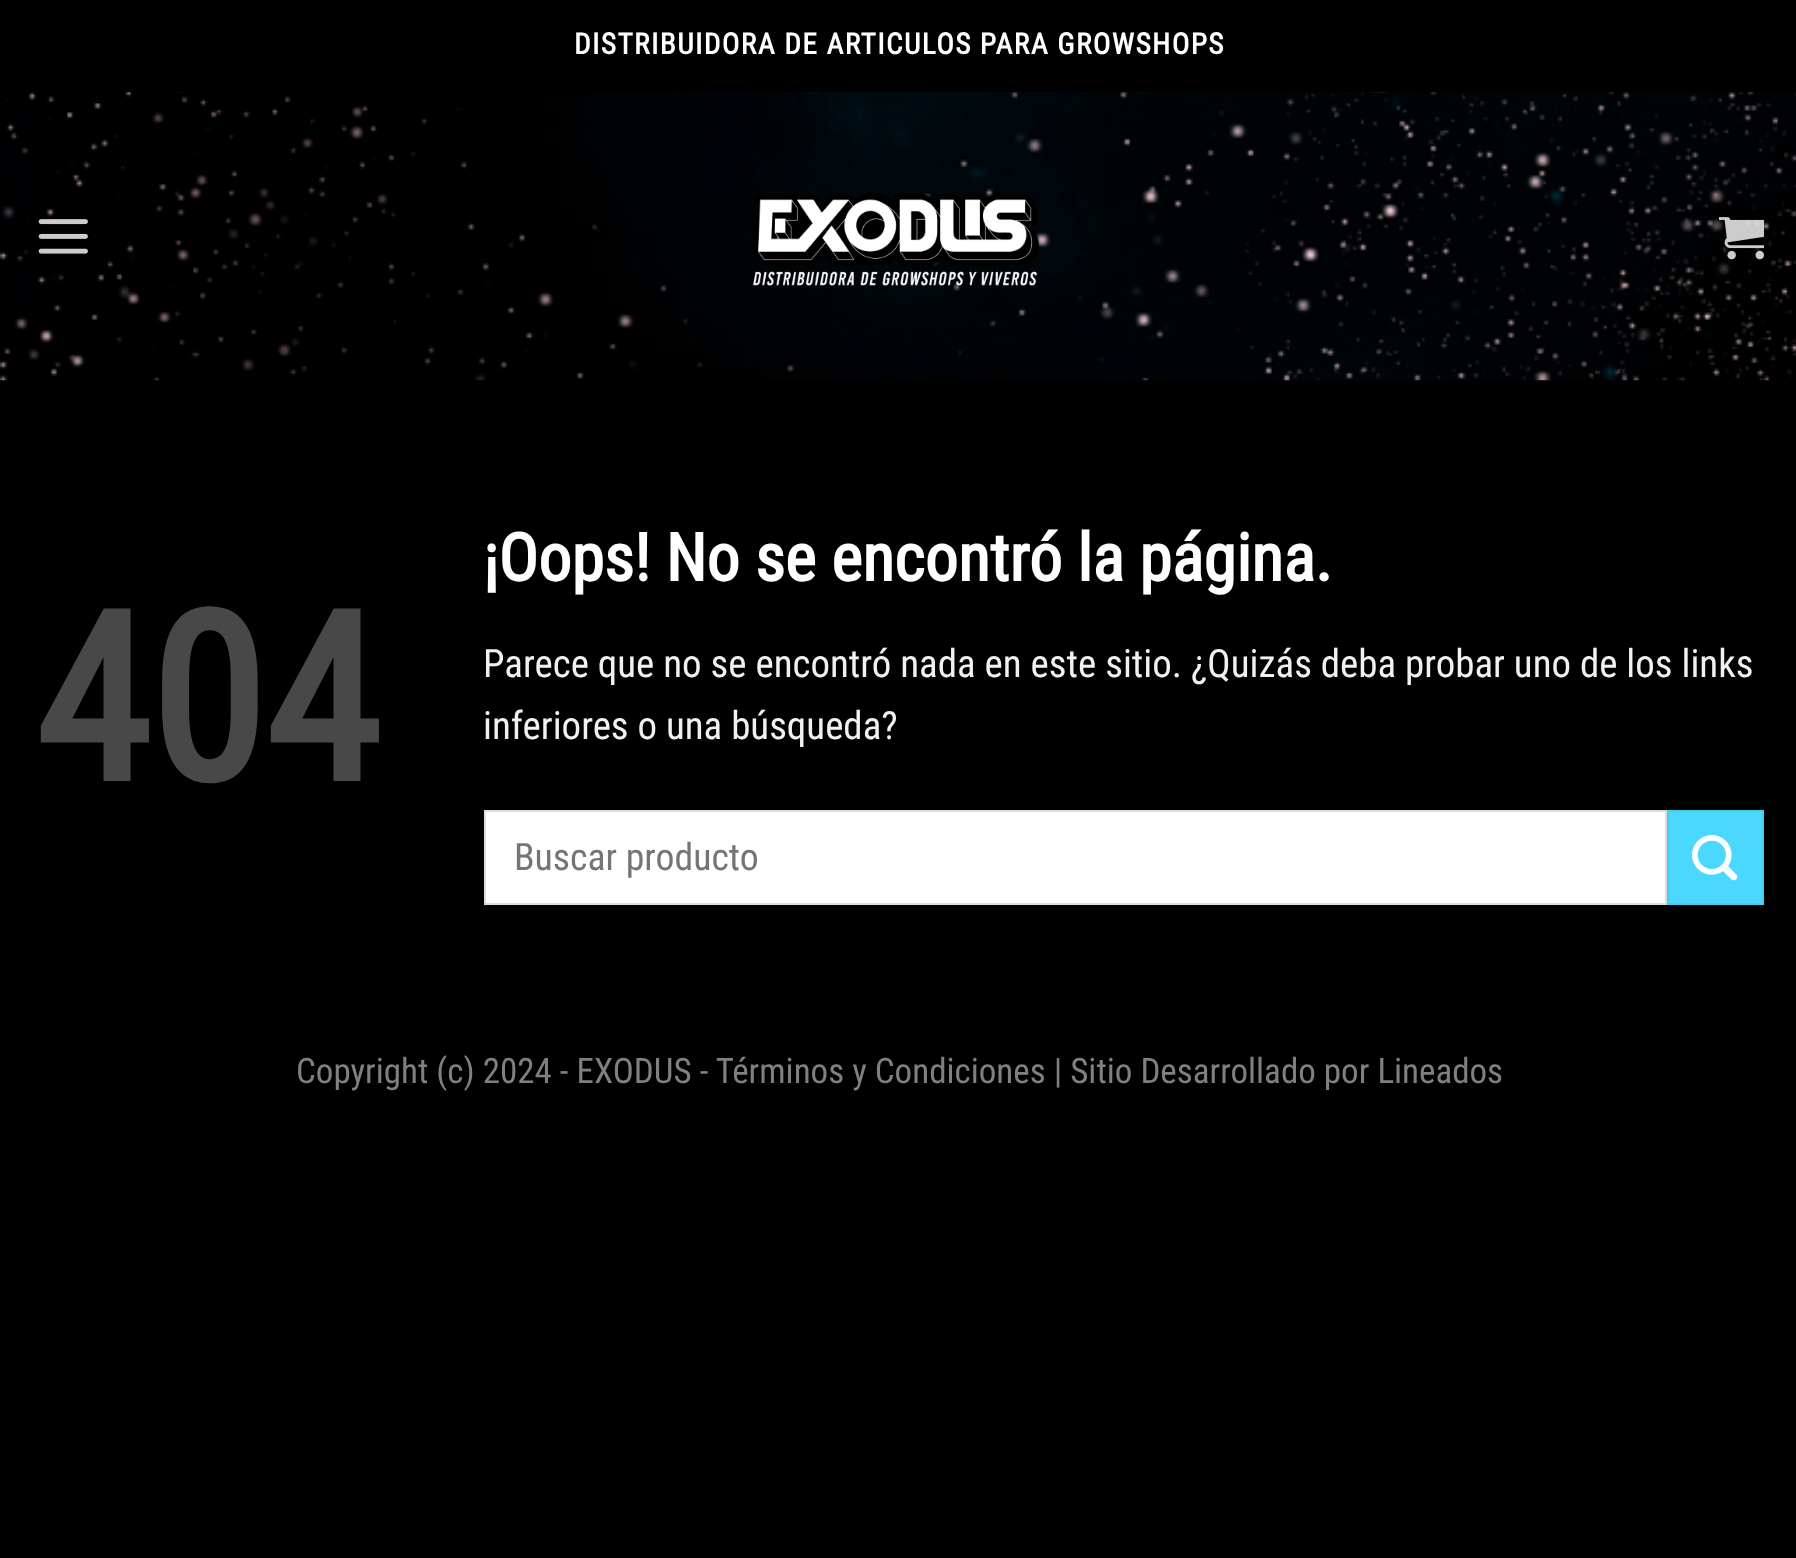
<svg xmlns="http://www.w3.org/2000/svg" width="1796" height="1558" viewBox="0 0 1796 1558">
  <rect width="100%" height="100%" fill="#000000"/>
  <text x="574" y="54" font-family="Roboto Condensed" font-size="29.2" font-weight="bold" letter-spacing="1.45" fill="#ffffff">DISTRIBUIDORA DE ARTICULOS PARA GROWSHOPS</text>
  <image x="0" y="92" width="1796" height="289" href="img1.png"/>
  <image x="38" y="219" width="50" height="35" href="img2.png"/>
  <image x="752" y="193" width="287" height="93" href="img3.png"/>
  <image x="1719" y="217" width="45" height="43" href="img4.png"/>
  <text x="34" y="781" font-family="Roboto Condensed" font-size="233" font-weight="bold" fill="#484848">404</text>
  <text x="483" y="581" font-family="Roboto Condensed" font-size="66.1" font-weight="bold" fill="#ffffff">¡Oops! No se encontró la página.</text>
  <text x="483" y="677" font-family="Roboto Condensed" font-size="38.9" fill="#f1f1f1">Parece que no se encontró nada en este sitio. ¿Quizás deba probar uno de los links</text>
  <text x="483" y="739" font-family="Roboto Condensed" font-size="38.9" fill="#f1f1f1">inferiores o una búsqueda?</text>
  <rect x="485" y="811" width="1181" height="93" fill="#ffffff" stroke="#dddddd" stroke-width="2"/>
  <text x="514" y="870" font-family="Roboto Condensed" font-size="37.75" fill="#757575">Buscar producto</text>
  <rect x="1668" y="811" width="95" height="93" fill="#4ad8ff" stroke="#46cdf2" stroke-width="2"/>
  <image x="1692" y="835" width="46" height="46" href="img5.png"/>
  <text x="296" y="1083" font-family="Roboto Condensed" font-size="35" fill="#808080">Copyright (c) 2024 - EXODUS - Términos y Condiciones | Sitio Desarrollado por Lineados</text>
</svg>
